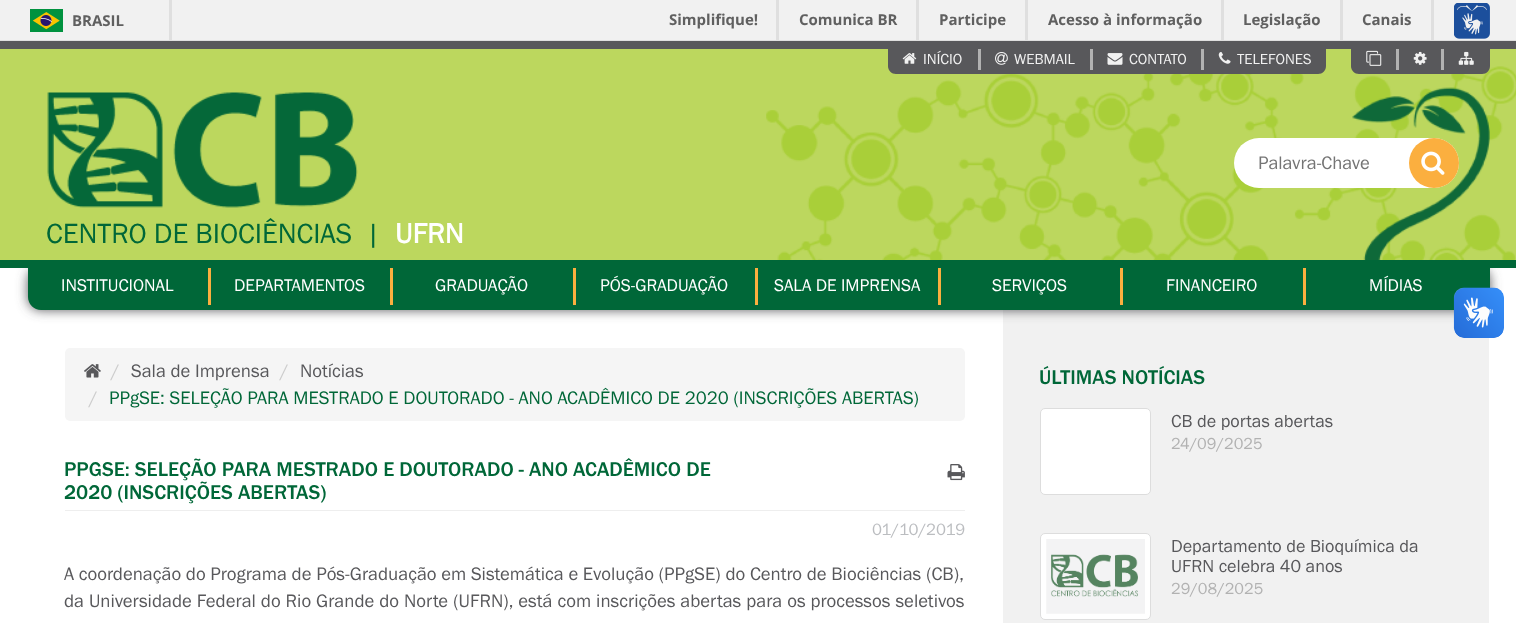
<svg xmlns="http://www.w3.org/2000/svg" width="1516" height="623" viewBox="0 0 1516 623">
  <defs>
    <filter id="blur1" x="-50%" y="-200%" width="200%" height="500%"><feGaussianBlur stdDeviation="6"/></filter>
  </defs>
  <rect width="100%" height="100%" fill="#ffffff"/>
  <rect x="0" y="0" width="1516" height="40" fill="#f1f1f1"/>
  <rect x="0" y="40" width="1516" height="1" fill="#dfdfdf"/>
  <rect x="169" y="0" width="3" height="40" fill="#dfdfdf"/>
  <image x="30" y="9" width="33" height="23" href="img1.png"/>
  <text x="72" y="26" font-family="Open Sans" font-size="15" font-weight="bold" fill="#606060">BRASIL</text>
  <rect x="776" y="0" width="3" height="40" fill="#dfdfdf"/>
  <text x="669" y="25" font-family="Open Sans" font-size="15" font-weight="bold" fill="#606060">Simplifique!</text>
  <rect x="916" y="0" width="3" height="40" fill="#dfdfdf"/>
  <text x="799" y="25" font-family="Open Sans" font-size="15" font-weight="bold" fill="#606060">Comunica BR</text>
  <rect x="1025" y="0" width="3" height="40" fill="#dfdfdf"/>
  <text x="939" y="25" font-family="Open Sans" font-size="15" font-weight="bold" fill="#606060">Participe</text>
  <rect x="1221" y="0" width="3" height="40" fill="#dfdfdf"/>
  <text x="1048" y="25" font-family="Open Sans" font-size="15" font-weight="bold" fill="#606060">Acesso à informação</text>
  <rect x="1340" y="0" width="3" height="40" fill="#dfdfdf"/>
  <text x="1243" y="25" font-family="Open Sans" font-size="15" font-weight="bold" fill="#606060">Legislação</text>
  <rect x="1431" y="0" width="3" height="40" fill="#dfdfdf"/>
  <text x="1362" y="25" font-family="Open Sans" font-size="15" font-weight="bold" fill="#606060">Canais</text>
  <image x="1454" y="3" width="36" height="36" href="img2.png"/>
  <rect x="1003" y="310" width="486" height="313" fill="#f1f1f1"/>
  <rect x="28" y="268" width="1462" height="42" rx="13" fill="#58585b" filter="url(#blur1)"/>
  <rect x="0" y="49" width="1516" height="211" fill="#bcd75e"/>
  <image x="766" y="66" width="750" height="194" href="img3.png"/>
  <rect x="0" y="41" width="1516" height="8" fill="#58585b"/>
  <rect x="0" y="260" width="1516" height="8" fill="#006738"/>
  <image x="1352" y="87" width="138" height="173" href="img4.png"/>
  <path d="M888 49H1326V66C1326 70.5 1322.5 74 1318 74H896C891.5 74 888 70.5 888 66Z" fill="#58585b"/>
  <rect x="978" y="49" width="3" height="21" fill="#b2b2b2"/>
  <image x="902" y="53" width="15" height="11" href="img5.png"/>
  <text x="923" y="64" font-family="Franklin Gothic" font-size="15" fill="#f1f1f1">INÍCIO</text>
  <rect x="1090" y="49" width="3" height="21" fill="#b2b2b2"/>
  <image x="995" y="52" width="13" height="13" href="img6.png"/>
  <text x="1014" y="64" font-family="Franklin Gothic" font-size="15" fill="#f1f1f1">WEBMAIL</text>
  <rect x="1201" y="49" width="3" height="21" fill="#b2b2b2"/>
  <image x="1107" y="53" width="16" height="12" href="img7.png"/>
  <text x="1129" y="64" font-family="Franklin Gothic" font-size="15" fill="#f1f1f1">CONTATO</text>
  <image x="1218" y="52" width="13" height="12" href="img8.png"/>
  <text x="1237" y="64" font-family="Franklin Gothic" font-size="15" fill="#f1f1f1">TELEFONES</text>
  <path d="M1351 49H1490V66C1490 70.5 1486.5 74 1482 74H1359C1354.5 74 1351 70.5 1351 66Z" fill="#58585b"/>
  <rect x="1396" y="49" width="3" height="21" fill="#b2b2b2"/>
  <image x="1366" y="50" width="16" height="16" href="img9.png"/>
  <rect x="1441" y="49" width="3" height="21" fill="#b2b2b2"/>
  <image x="1413" y="51" width="14" height="14" href="img10.png"/>
  <image x="1458" y="51" width="16" height="14" href="img11.png"/>
  <rect x="1234" y="138" width="225" height="50" rx="25" fill="#ffffff"/>
  <text x="1258" y="169" font-family="Franklin Gothic" font-size="18.75" fill="#757575">Palavra-Chave</text>
  <circle cx="1434" cy="163" r="25" fill="#fbaf3f"/>
  <image x="1421" y="151" width="24" height="24" href="img12.png"/>
  <image x="47" y="92" width="311" height="116" href="img13.png"/>
  <text x="46" y="243" font-family="Franklin Gothic" font-size="28.75" fill="#006738">CENTRO DE BIOCIÊNCIAS</text>
  <text x="366" y="243" font-family="Franklin Gothic" font-size="28.75" fill="#006738">|</text>
  <text x="395" y="243" font-family="Franklin Gothic" font-size="28.75" font-weight="bold" fill="#ffffff">UFRN</text>
  <path d="M28 268H1490V297C1490 304 1484 310 1477 310H41C34 310 28 304 28 297Z" fill="#006738"/>
  <rect x="208" y="268" width="3" height="37" fill="#fbaf3f"/>
  <text x="61" y="291" font-family="Franklin Gothic" font-size="17.5" fill="#ffffff">INSTITUCIONAL</text>
  <rect x="390" y="268" width="3" height="37" fill="#fbaf3f"/>
  <text x="234" y="291" font-family="Franklin Gothic" font-size="17.5" fill="#ffffff">DEPARTAMENTOS</text>
  <rect x="573" y="268" width="3" height="37" fill="#fbaf3f"/>
  <text x="435" y="291" font-family="Franklin Gothic" font-size="17.5" fill="#ffffff">GRADUAÇÃO</text>
  <rect x="755" y="268" width="3" height="37" fill="#fbaf3f"/>
  <text x="600" y="291" font-family="Franklin Gothic" font-size="17.5" fill="#ffffff">PÓS-GRADUAÇÃO</text>
  <rect x="938" y="268" width="3" height="37" fill="#fbaf3f"/>
  <text x="774" y="291" font-family="Franklin Gothic" font-size="17.5" fill="#ffffff">SALA DE IMPRENSA</text>
  <rect x="1120" y="268" width="3" height="37" fill="#fbaf3f"/>
  <text x="992" y="291" font-family="Franklin Gothic" font-size="17.5" fill="#ffffff">SERVIÇOS</text>
  <rect x="1303" y="268" width="3" height="37" fill="#fbaf3f"/>
  <text x="1166" y="291" font-family="Franklin Gothic" font-size="17.5" fill="#ffffff">FINANCEIRO</text>
  <text x="1369" y="291" font-family="Franklin Gothic" font-size="17.5" fill="#ffffff">MÍDIAS</text>
  <image x="1453" y="287" width="51" height="51" href="img14.png"/>
  <image x="1454" y="288" width="50" height="50" href="img15.png"/>
  <rect x="65" y="348" width="900" height="73" rx="5" fill="#f5f5f5"/>
  <image x="84" y="364" width="17" height="14" href="img16.png"/>
  <text x="111" y="377" font-family="Franklin Gothic" font-size="18.75" fill="#cccccc">/</text>
  <text x="131" y="377" font-family="Franklin Gothic" font-size="18.75" fill="#58585b">Sala de Imprensa</text>
  <text x="280" y="377" font-family="Franklin Gothic" font-size="18.75" fill="#cccccc">/</text>
  <text x="300" y="377" font-family="Franklin Gothic" font-size="18.75" fill="#58585b">Notícias</text>
  <text x="89" y="404" font-family="Franklin Gothic" font-size="18.75" fill="#cccccc">/</text>
  <text x="109" y="404" font-family="Franklin Gothic" font-size="18.75" fill="#006738">PPgSE: SELEÇÃO PARA MESTRADO E DOUTORADO - ANO ACADÊMICO DE 2020 (INSCRIÇÕES ABERTAS)</text>
  <text x="64" y="476" font-family="Franklin Gothic" font-size="20.6" font-weight="500" fill="#006738">PPGSE: SELEÇÃO PARA MESTRADO E DOUTORADO - ANO ACADÊMICO DE</text>
  <text x="64" y="499" font-family="Franklin Gothic" font-size="20.6" font-weight="500" fill="#006738">2020 (INSCRIÇÕES ABERTAS)</text>
  <image x="947" y="464" width="18" height="17" href="img17.png"/>
  <rect x="65" y="510" width="900" height="1" fill="#eeeeee"/>
  <text x="872" y="535" font-family="Franklin Gothic" font-size="17" fill="#bbbdc0">01/10/2019</text>
  <text x="64" y="580" font-family="Franklin Gothic" font-size="18.75" fill="#58585b">A coordenação do Programa de Pós-Graduação em Sistemática e Evolução (PPgSE) do Centro de Biociências (CB),</text>
  <text x="64" y="607" word-spacing="0.25" font-family="Franklin Gothic" font-size="18.75" fill="#58585b">da Universidade Federal do Rio Grande do Norte (UFRN), está com inscrições abertas para os processos seletivos</text>
  <text x="1039" y="384" font-family="Franklin Gothic" font-size="20.6" font-weight="500" fill="#006738">ÚLTIMAS NOTÍCIAS</text>
  <rect x="1040.5" y="408.5" width="110" height="86" rx="4.5" fill="#ffffff" stroke="#dddddd"/>
  <text x="1171" y="427" font-family="Franklin Gothic" font-size="18.1" fill="#58585b">CB de portas abertas</text>
  <text x="1171" y="449" font-family="Franklin Gothic" font-size="16.5" fill="#b2b2b2">24/09/2025</text>
  <rect x="1040.5" y="533.5" width="110" height="86" rx="4.5" fill="#ffffff" stroke="#dddddd"/>
  <image x="1046" y="539" width="99" height="75" href="img18.png"/>
  <text x="1171" y="552" font-family="Franklin Gothic" font-size="18.1" fill="#58585b">Departamento de Bioquímica da</text>
  <text x="1171" y="572" font-family="Franklin Gothic" font-size="18.1" fill="#58585b">UFRN celebra 40 anos</text>
  <text x="1171" y="594" font-family="Franklin Gothic" font-size="16.5" fill="#b2b2b2">29/08/2025</text>
</svg>
